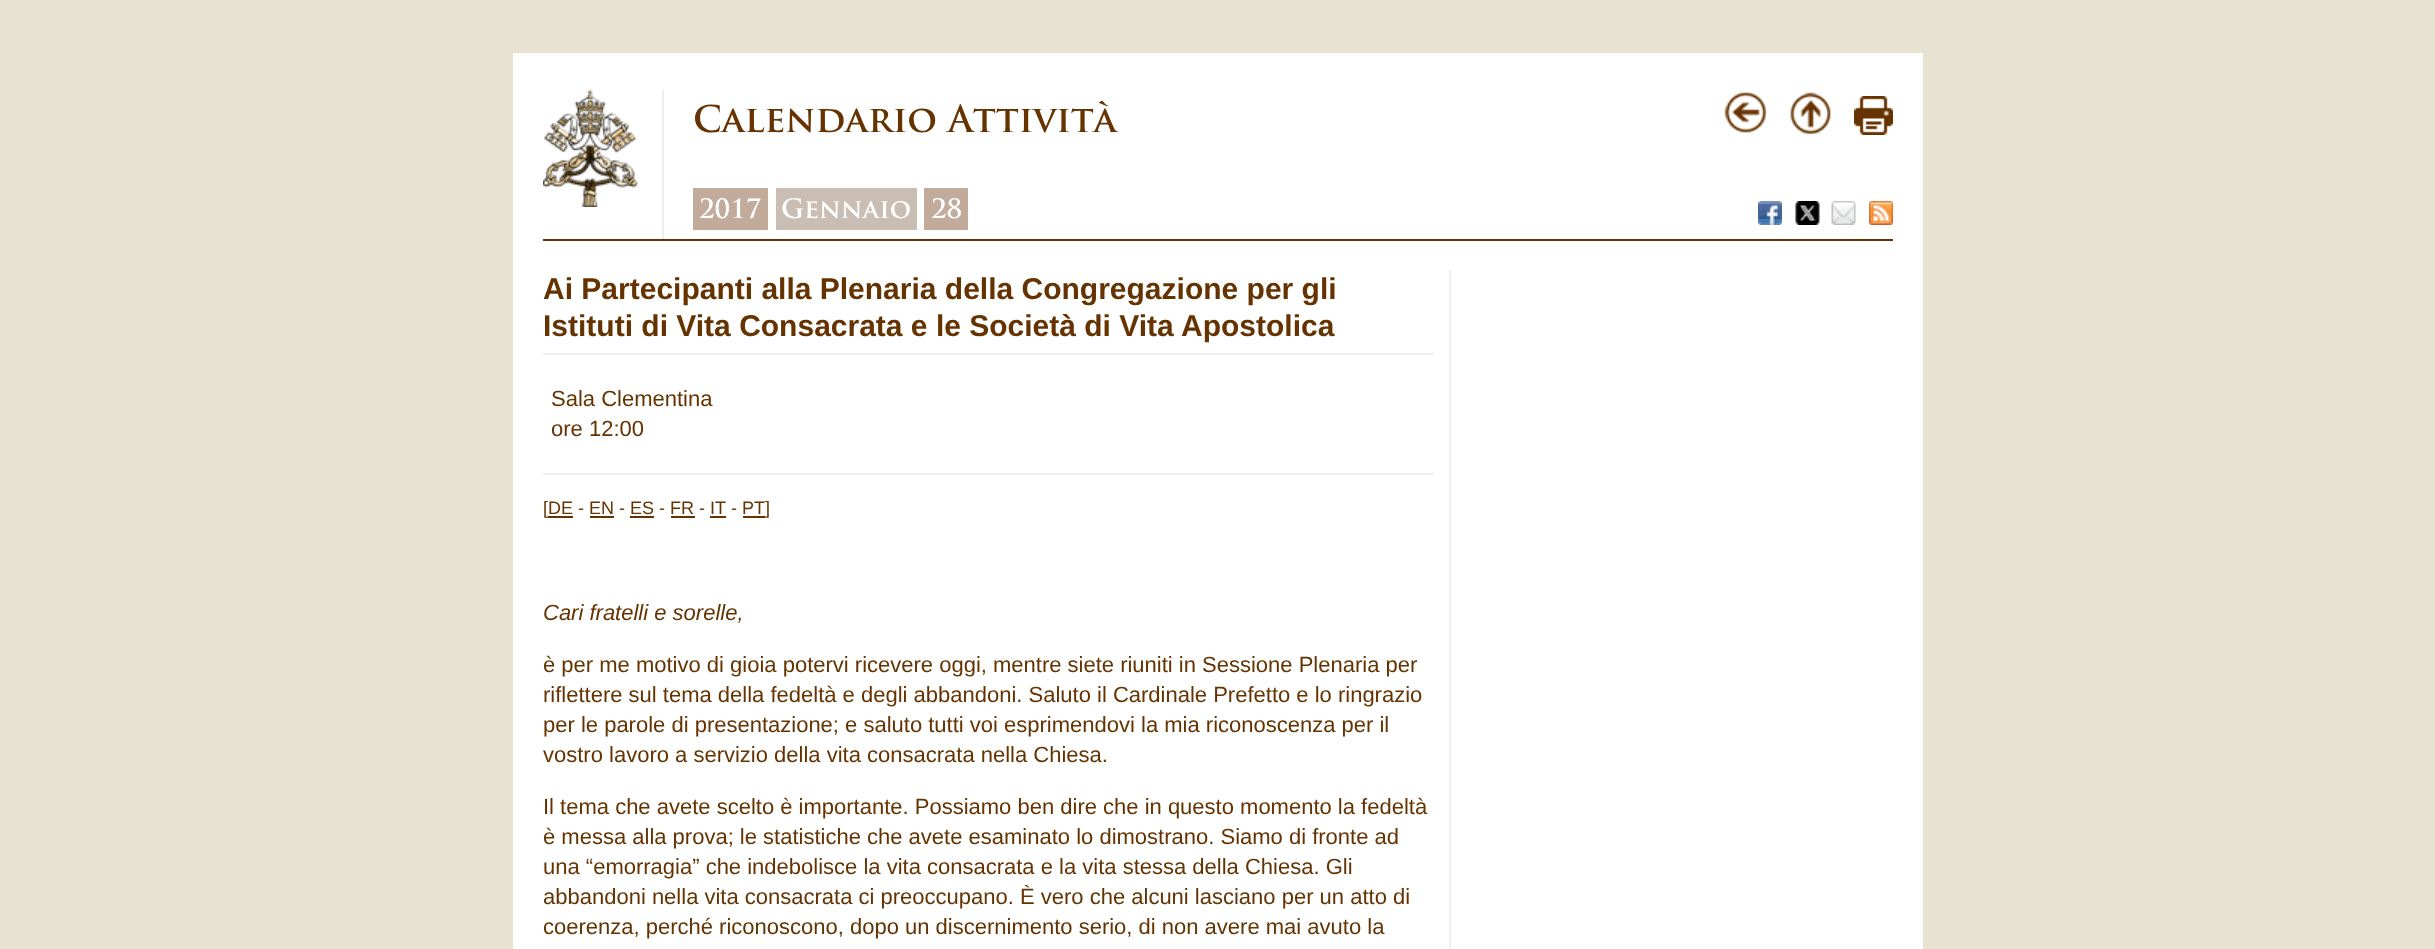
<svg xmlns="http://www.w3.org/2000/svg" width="2435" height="949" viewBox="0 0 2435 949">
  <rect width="100%" height="100%" fill="#e8e2d1"/>
  <rect x="513" y="53" width="1410" height="896" fill="#ffffff"/>
  <rect x="543" y="239" width="1350" height="2" fill="#663300"/>
  <rect x="662" y="90" width="2" height="149" fill="#eeeeee"/>
  <image x="543" y="90" width="95" height="117" href="img1.png"/>
  <text x="693" y="132" font-family="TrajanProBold" font-size="36" font-weight="bold" fill="#663300">Calendario Attività</text>
  <rect x="693" y="188" width="75" height="42" fill="#c2ab9b"/>
  <text x="699" y="218" font-family="TrajanProBold" font-size="26" font-weight="bold" fill="#ffffff">2017</text>
  <rect x="776" y="188" width="141" height="42" fill="#cabdb4"/>
  <text x="781" y="218" font-family="TrajanProBold" font-size="26" font-weight="bold" fill="#ffffff">Gennaio</text>
  <rect x="924" y="188" width="44" height="42" fill="#c2ab9b"/>
  <text x="931" y="218" font-family="TrajanProBold" font-size="26" font-weight="bold" fill="#ffffff">28</text>
  <image x="1724" y="92" width="42" height="41" href="img2.png"/>
  <image x="1790" y="92" width="41" height="42" href="img3.png"/>
  <image x="1854" y="96" width="39" height="39" href="img4.png"/>
  <image x="1758" y="201" width="24" height="24" href="img5.png"/>
  <image x="1795" y="201" width="25" height="24" href="img6.png"/>
  <image x="1831" y="201" width="25" height="24" href="img7.png"/>
  <image x="1869" y="201" width="24" height="24" href="img8.png"/>
  <rect x="1449" y="270" width="2" height="679" fill="#eeeeee"/>
  <rect x="543" y="353" width="891" height="2" fill="#eeeeee"/>
  <text x="543" y="299" font-family="Liberation Sans" font-size="30" font-weight="bold" fill="#663300">Ai Partecipanti alla Plenaria della Congregazione per gli</text>
  <text x="543" y="336" font-family="Liberation Sans" font-size="30" font-weight="bold" fill="#663300">Istituti di Vita Consacrata e le Società di Vita Apostolica</text>
  <rect x="543" y="473" width="891" height="2" fill="#eeeeee"/>
  <text x="551" y="406" font-family="Liberation Sans" font-size="22" fill="#663300">Sala Clementina</text>
  <text x="551" y="436" font-family="Liberation Sans" font-size="22" fill="#663300">ore 12:00</text>
  <text x="543" y="514" font-family="Liberation Sans" font-size="18" fill="#663300">[DE - EN - ES - FR - IT</text>
  <text x="731" y="514" font-family="Liberation Sans" font-size="18" fill="#663300">- PT</text>
  <rect x="743" y="516" width="22" height="2" fill="#663300"/>
  <text x="765" y="514" font-family="Liberation Sans" font-size="18" fill="#663300">]</text>
  <rect x="548" y="516" width="25" height="2" fill="#663300"/>
  <rect x="590" y="516" width="24" height="2" fill="#663300"/>
  <rect x="630" y="516" width="24" height="2" fill="#663300"/>
  <rect x="671" y="516" width="24" height="2" fill="#663300"/>
  <rect x="710" y="516" width="16" height="2" fill="#663300"/>
  <text x="543" y="620" font-family="Liberation Sans" font-size="22" font-style="italic" fill="#663300">Cari fratelli e sorelle,</text>
  <text x="543" y="672" font-family="Liberation Sans" font-size="22" fill="#663300">è per me motivo di gioia potervi ricevere oggi, mentre siete riuniti in Sessione Plenaria per</text>
  <text x="543" y="702" font-family="Liberation Sans" font-size="22" fill="#663300">riflettere sul tema della fedeltà e degli abbandoni. Saluto il Cardinale Prefetto e lo ringrazio</text>
  <text x="543" y="732" font-family="Liberation Sans" font-size="22" fill="#663300">per le parole di presentazione; e saluto tutti voi esprimendovi la mia riconoscenza per il</text>
  <text x="543" y="762" font-family="Liberation Sans" font-size="22" fill="#663300">vostro lavoro a servizio della vita consacrata nella Chiesa.</text>
  <text x="543" y="814" font-family="Liberation Sans" font-size="22" fill="#663300">Il tema che avete scelto è importante. Possiamo ben dire che in questo momento la fedeltà</text>
  <text x="543" y="844" font-family="Liberation Sans" font-size="22" fill="#663300">è messa alla prova; le statistiche che avete esaminato lo dimostrano. Siamo di fronte ad</text>
  <text x="543" y="874" font-family="Liberation Sans" font-size="22" fill="#663300">una “emorragia” che indebolisce la vita consacrata e la vita stessa della Chiesa. Gli</text>
  <text x="543" y="904" font-family="Liberation Sans" font-size="22" fill="#663300">abbandoni nella vita consacrata ci preoccupano. È vero che alcuni lasciano per un atto di</text>
  <text x="543" y="934" font-family="Liberation Sans" font-size="22" fill="#663300">coerenza, perché riconoscono, dopo un discernimento serio, di non avere mai avuto la</text>
</svg>
